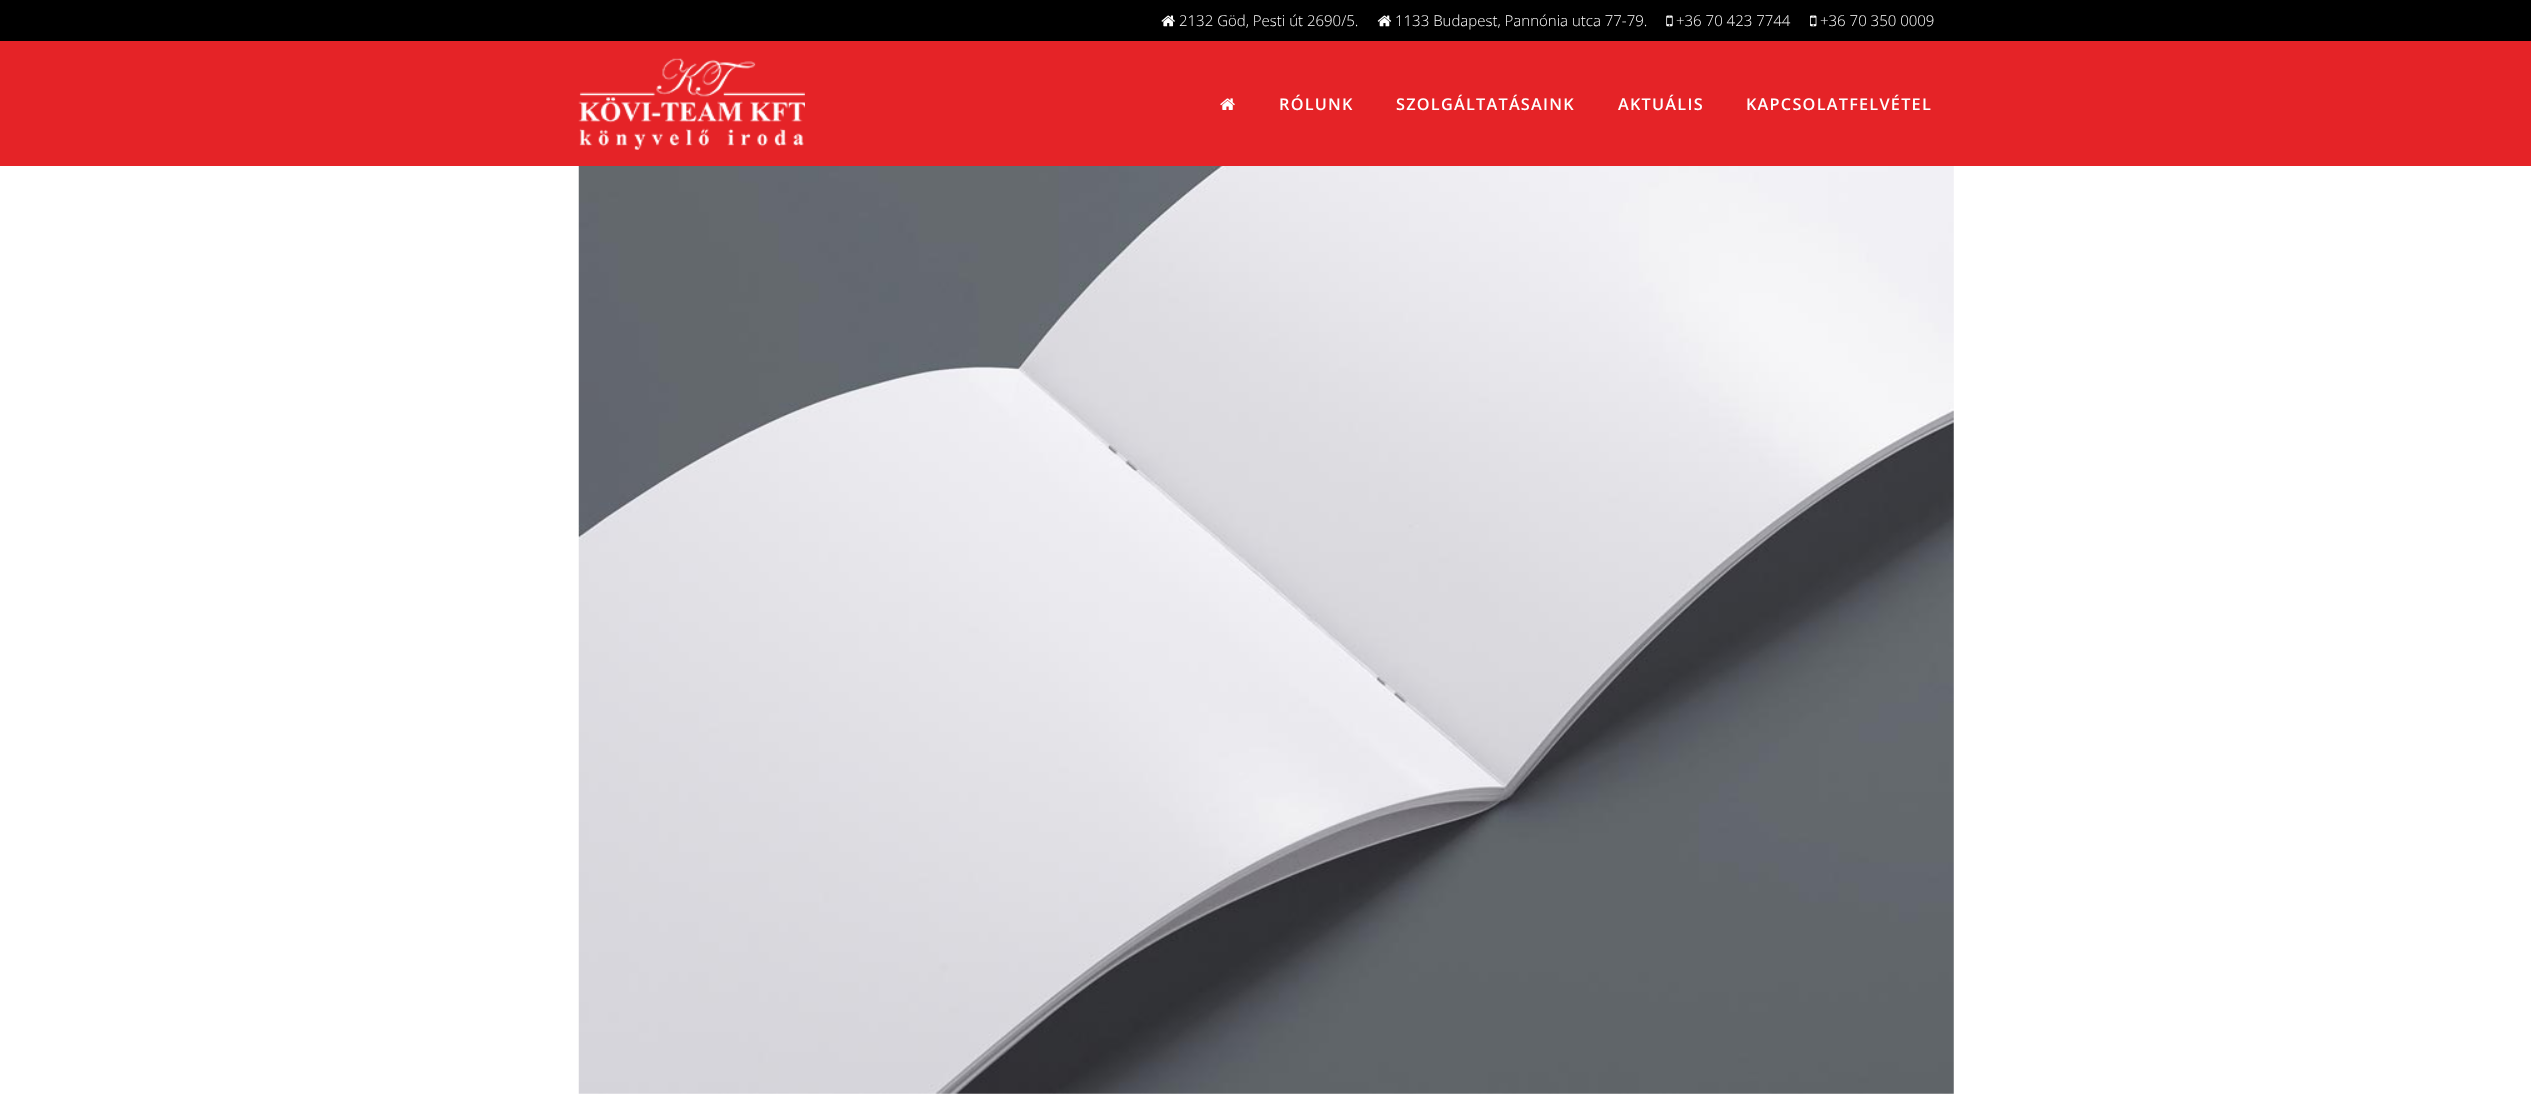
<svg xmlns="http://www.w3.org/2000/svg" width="2531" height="1098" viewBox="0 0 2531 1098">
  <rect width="100%" height="100%" fill="#ffffff"/>
  <rect x="0" y="0" width="2531" height="41" fill="#000000"/>
  <image x="1161" y="15" width="14" height="12" href="img1.png"/>
  <text x="1179" y="26" font-family="Open Sans" font-size="15" font-weight="300" fill="#ffffff">2132 Göd, Pesti út 2690/5.</text>
  <image x="1377" y="15" width="15" height="12" href="img2.png"/>
  <text x="1395" y="26" font-family="Open Sans" font-size="15" font-weight="300" fill="#ffffff">1133 Budapest, Pannónia utca 77-79.</text>
  <image x="1666" y="15" width="7" height="12" href="img3.png"/>
  <text x="1676" y="26" font-family="Open Sans" font-size="15" font-weight="300" fill="#ffffff">+36 70 423 7744</text>
  <image x="1810" y="15" width="7" height="12" href="img4.png"/>
  <text x="1820" y="26" font-family="Open Sans" font-size="15" font-weight="300" fill="#ffffff">+36 70 350 0009</text>
  <rect x="0" y="41" width="2531" height="125" fill="#e52327"/>
  <image x="578" y="58" width="227" height="92" href="img5.png"/>
  <image x="1220" y="98" width="15" height="12" href="img6.png"/>
  <text x="1279" y="110" font-family="Open Sans" font-size="16.25" font-weight="600" letter-spacing="1.25" fill="#ffffff">RÓLUNK</text>
  <text x="1396" y="110" font-family="Open Sans" font-size="16.25" font-weight="600" letter-spacing="1.25" fill="#ffffff">SZOLGÁLTATÁSAINK</text>
  <text x="1618" y="110" font-family="Open Sans" font-size="16.25" font-weight="600" letter-spacing="1.25" fill="#ffffff">AKTUÁLIS</text>
  <text x="1746" y="110" font-family="Open Sans" font-size="16.25" font-weight="600" letter-spacing="1.25" fill="#ffffff">KAPCSOLATFELVÉTEL</text>
  <image x="578" y="166" width="1376" height="928" href="img7.png"/>
</svg>
